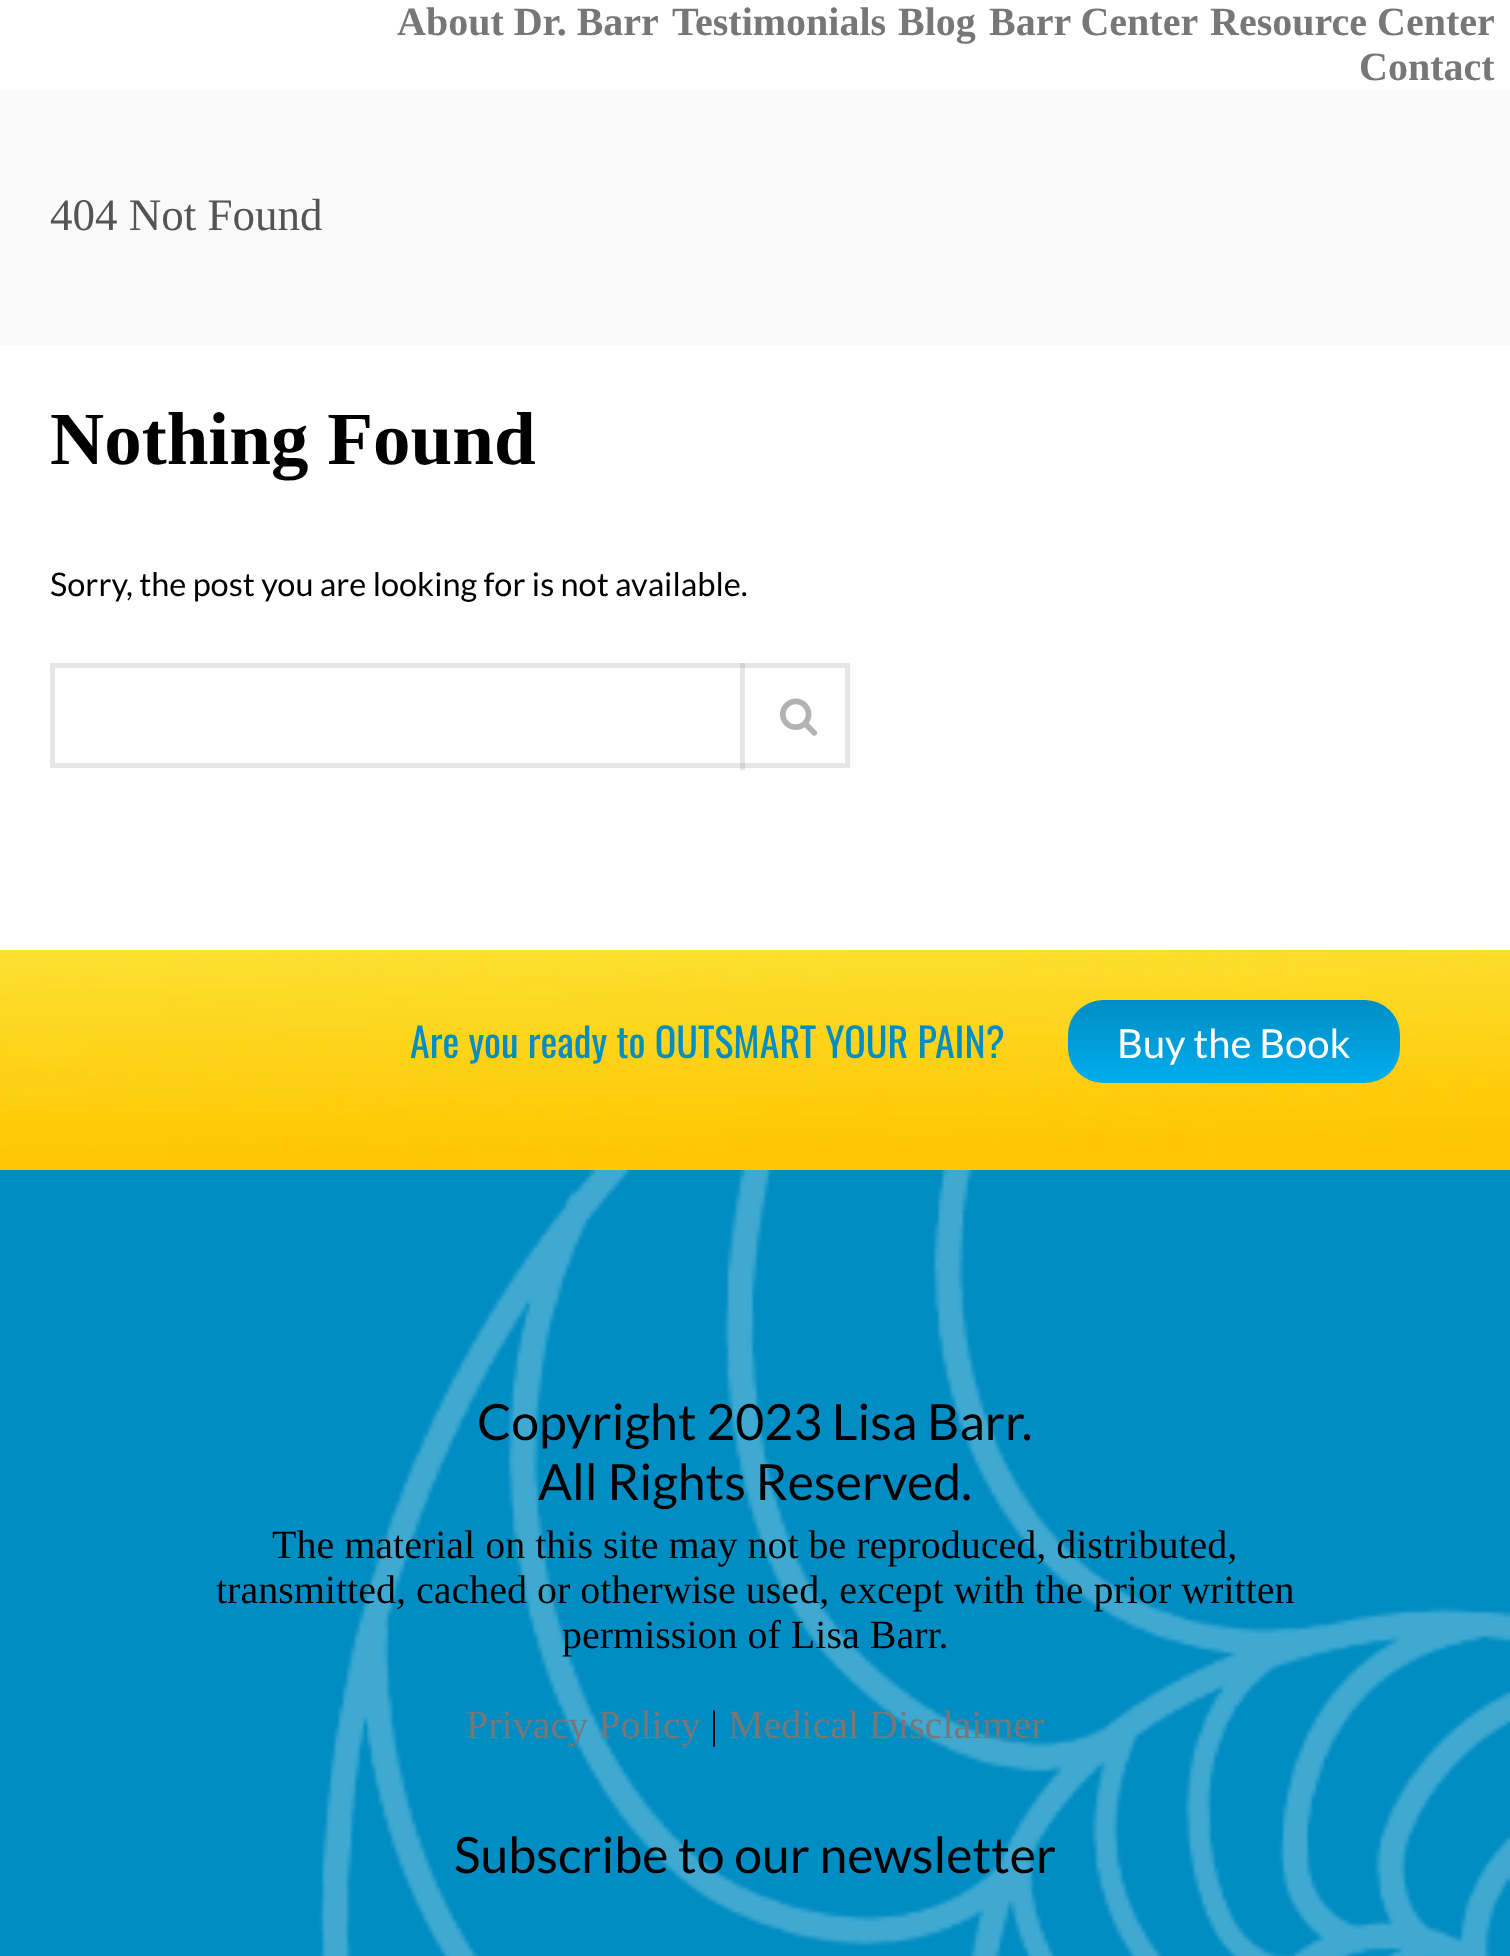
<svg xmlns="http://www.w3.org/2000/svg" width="1510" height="1956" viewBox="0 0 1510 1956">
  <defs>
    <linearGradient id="g1" gradientUnits="userSpaceOnUse" x1="1234" y1="1000" x2="1234" y2="1083"><stop offset="0" stop-color="#008dc3"/><stop offset="1" stop-color="#00adee"/></linearGradient>
  </defs>
  <rect width="100%" height="100%" fill="#ffffff"/>
  <text x="397" y="35" font-family="Liberation Serif" font-size="40" font-weight="bold" fill="#777777">About Dr. Barr</text>
  <text x="672" y="35" font-family="Liberation Serif" font-size="40" font-weight="bold" fill="#777777">Testimonials</text>
  <text x="898" y="35" font-family="Liberation Serif" font-size="40" font-weight="bold" fill="#777777">Blog</text>
  <text x="989" y="35" font-family="Liberation Serif" font-size="40" font-weight="bold" fill="#777777">Barr Center</text>
  <text x="1210" y="35" font-family="Liberation Serif" font-size="40" font-weight="bold" fill="#777777">Resource Center</text>
  <text x="1359" y="80" font-family="Liberation Serif" font-size="40" font-weight="bold" fill="#777777">Contact</text>
  <rect x="0" y="90" width="1510" height="255" fill="#fafafa"/>
  <text x="50" y="230" font-family="Liberation Serif" font-size="45" fill="#545454">404 Not Found</text>
  <text x="50" y="464" font-family="Liberation Serif" font-size="75" font-weight="bold" fill="#000000">Nothing Found</text>
  <text x="50" y="596" font-family="Lato" font-size="32.5" fill="#000000">Sorry, the post you are looking for is not available.</text>
  <rect x="52.5" y="665.5" width="795" height="100" fill="none" stroke="#e6e6e6" stroke-width="5"/>
  <rect x="740" y="663" width="5" height="107" fill="#808080" fill-opacity="0.2"/>
  <image x="780" y="698" width="38" height="38" href="img1.png"/>
  <image x="0" y="950" width="1510" height="220" href="img2.png"/>
  <text x="410" y="1058" font-family="Oswald" font-size="40" fill="#008dc3">Are you ready to OUTSMART YOUR PAIN?</text>
  <rect x="1068" y="1000" width="332" height="83" rx="35" fill="url(#g1)"/>
  <text x="1117" y="1058" font-family="Lato" font-size="40" fill="#ffffff">Buy the Book</text>
  <rect x="0" y="1170" width="1510" height="786" fill="#008dc3"/>
  <image x="319" y="1170" width="1191" height="786" href="img3.png"/>
  <text x="477" y="1440" font-family="Lato" font-size="50" fill="#000000">Copyright 2023 Lisa Barr.</text>
  <text x="538" y="1500" font-family="Lato" font-size="50" fill="#000000">All Rights Reserved.</text>
  <text x="272" y="1558" font-family="Liberation Serif" font-size="40" fill="#000000">The material on this site may not be reproduced, distributed,</text>
  <text x="216" y="1603" font-family="Liberation Serif" font-size="40" fill="#000000">transmitted, cached or otherwise used, except with the prior written</text>
  <text x="562" y="1648" font-family="Liberation Serif" font-size="40" fill="#000000">permission of Lisa Barr.</text>
  <text x="466" y="1738" font-family="Liberation Serif" font-size="40" fill="#777777">Privacy Policy</text>
  <text x="710" y="1738" font-family="Liberation Serif" font-size="40" fill="#000000">|</text>
  <text x="728" y="1738" font-family="Liberation Serif" font-size="40" fill="#777777">Medical Disclaimer</text>
  <text x="454" y="1873" font-family="Lato" font-size="50" fill="#000000">Subscribe to our newsletter</text>
</svg>
